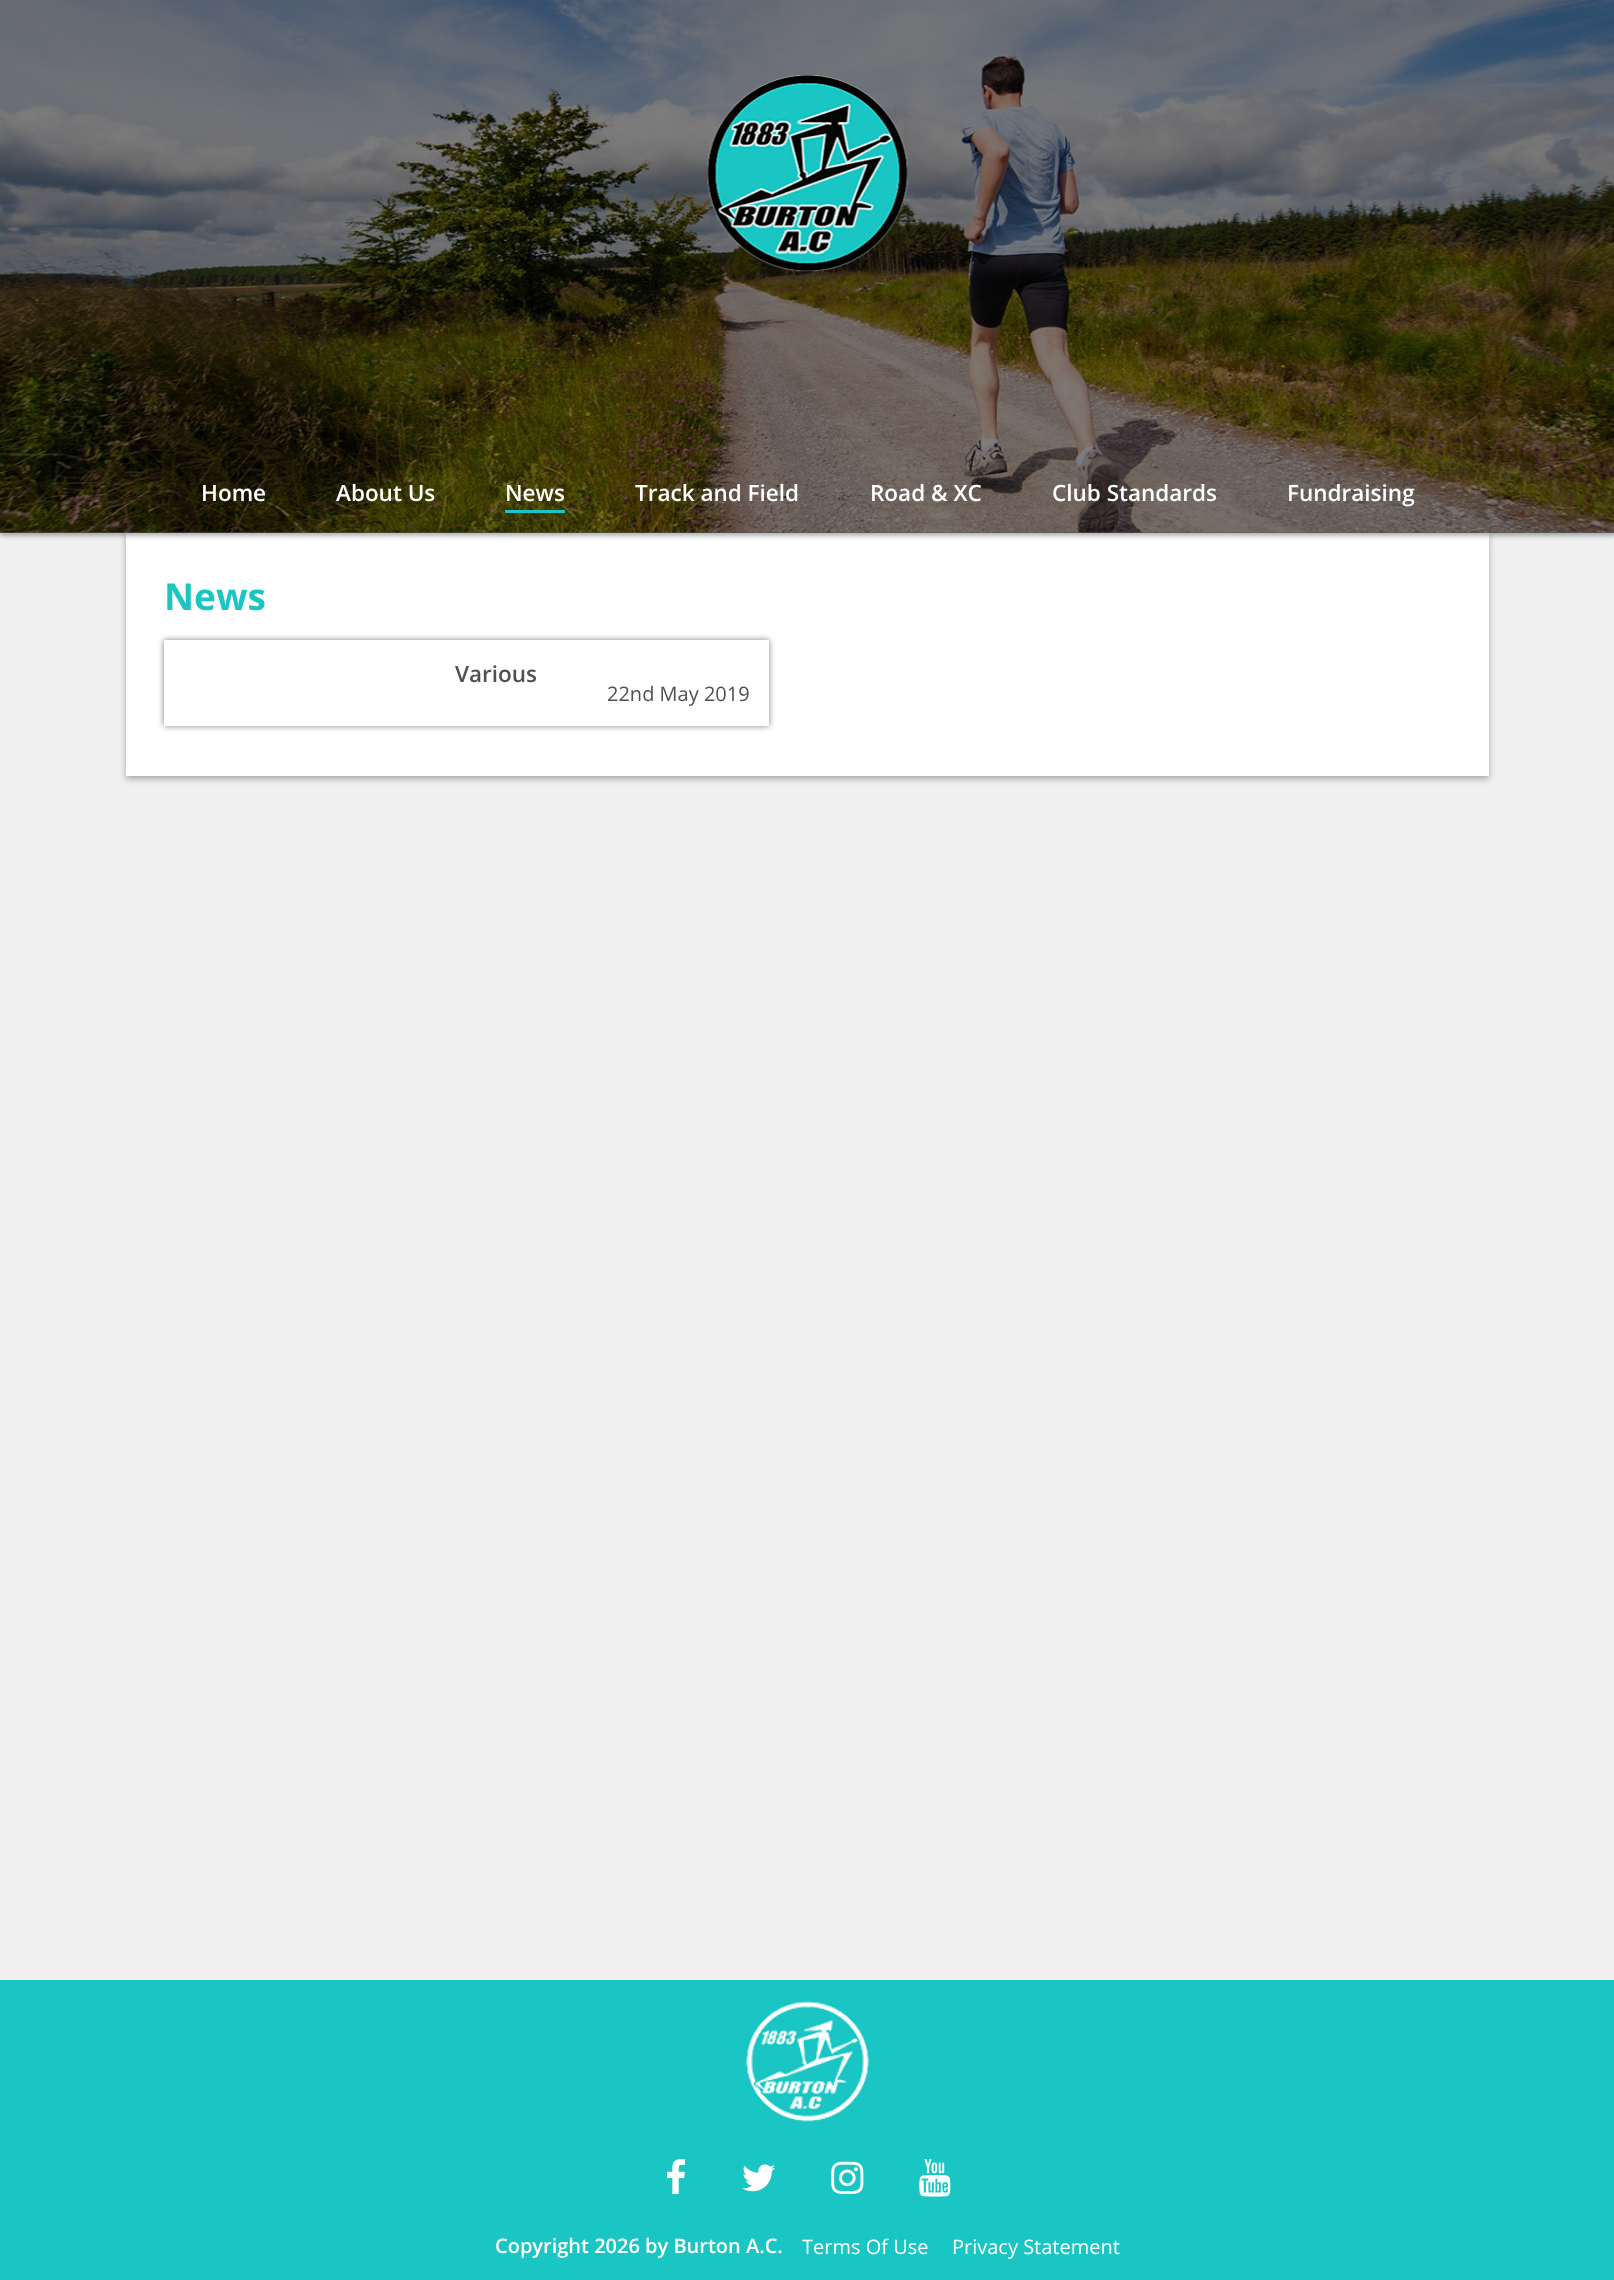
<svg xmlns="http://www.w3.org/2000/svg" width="1614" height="2280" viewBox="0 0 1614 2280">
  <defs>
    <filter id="blur1" x="-50%" y="-200%" width="200%" height="500%"><feGaussianBlur stdDeviation="3"/></filter>
    <filter id="blur2" x="-50%" y="-200%" width="200%" height="500%"><feGaussianBlur stdDeviation="2"/></filter>
  </defs>
  <rect width="100%" height="100%" fill="#ffffff"/>
  <rect x="0" y="533" width="1614" height="1447" fill="#f0f0f0"/>
  <rect x="126" y="535" width="1363" height="244" fill="#000000" fill-opacity="0.3" filter="url(#blur1)"/>
  <rect x="126" y="533" width="1363" height="243" fill="#ffffff"/>
  <rect x="0" y="4" width="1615" height="532" fill="#000000" fill-opacity="0.3" filter="url(#blur2)"/>
  <image x="0" y="0" width="1614" height="533" href="img1.png"/>
  <rect x="0" y="0" width="1614" height="533" fill="#000000" fill-opacity="0.5"/>
  <image x="707" y="75" width="201" height="197" href="img2.png"/>
  <text x="201" y="501" font-family="Open Sans" font-size="22.5" font-weight="600" fill="#ffffff">Home</text>
  <text x="336" y="501" font-family="Open Sans" font-size="22.5" font-weight="600" fill="#ffffff">About Us</text>
  <text x="505" y="501" font-family="Open Sans" font-size="22.5" font-weight="600" fill="#ffffff">News</text>
  <rect x="505" y="510" width="60" height="3" fill="#1ac6c4"/>
  <text x="635" y="501" font-family="Open Sans" font-size="22.5" font-weight="600" fill="#ffffff">Track and Field</text>
  <text x="870" y="501" font-family="Open Sans" font-size="22.5" font-weight="600" fill="#ffffff">Road &amp; XC</text>
  <text x="1052" y="501" font-family="Open Sans" font-size="22.5" font-weight="600" fill="#ffffff">Club Standards</text>
  <text x="1287" y="501" font-family="Open Sans" font-size="22.5" font-weight="600" fill="#ffffff">Fundraising</text>
  <text x="164" y="610" font-family="Open Sans" font-size="37" font-weight="bold" fill="#1ac6c4">News</text>
  <rect x="164" y="640" width="605" height="86" fill="#000000" fill-opacity="0.5" filter="url(#blur1)"/>
  <rect x="164" y="640" width="605" height="86" fill="#ffffff"/>
  <text x="455" y="682" font-family="Open Sans" font-size="22.5" font-weight="600" fill="#505050">Various</text>
  <text x="607" y="701" font-family="Open Sans" font-size="20" fill="#505050">22nd May 2019</text>
  <rect x="0" y="1980" width="1614" height="300" fill="#1ac6c4"/>
  <image x="746" y="2001" width="123" height="121" href="img3.png"/>
  <image x="667" y="2159" width="19" height="35" href="img4.png"/>
  <image x="742" y="2164" width="33" height="28" href="img5.png"/>
  <image x="831" y="2161" width="33" height="33" href="img6.png"/>
  <image x="919" y="2159" width="32" height="38" href="img7.png"/>
  <text x="495" y="2253" font-family="Open Sans" font-size="20" font-weight="600" fill="#ffffff">Copyright 2026 by Burton A.C.</text>
  <text x="802" y="2254" font-family="Open Sans" font-size="20" fill="#ffffff">Terms Of Use</text>
  <text x="952" y="2254" font-family="Open Sans" font-size="20" fill="#ffffff">Privacy Statement</text>
</svg>
